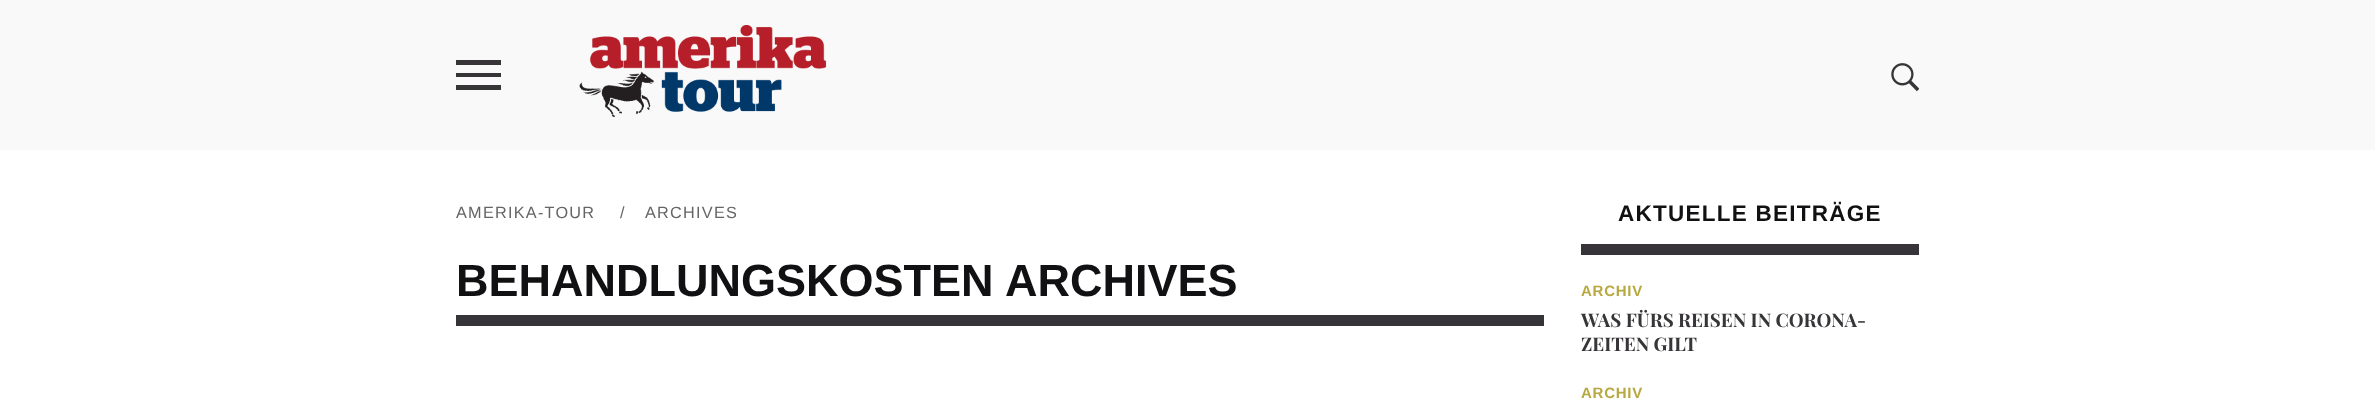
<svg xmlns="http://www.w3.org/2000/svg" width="2375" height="413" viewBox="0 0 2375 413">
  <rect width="100%" height="100%" fill="#ffffff"/>
  <rect x="0" y="0" width="2375" height="150" fill="#f9f9f9"/>
  <path d="M456 90V85H501V90ZM456 77V73H501V77ZM456 60H501V65H456Z" fill="#373538"/>
  <image x="579" y="25" width="248" height="92" href="img1.png"/>
  <image x="1891" y="63" width="28" height="29" href="img2.png"/>
  <text x="456" y="218" font-family="Liberation Sans" font-size="16.25" letter-spacing="1.25" fill="#656565">AMERIKA-TOUR</text>
  <text x="620" y="218" font-family="Liberation Sans" font-size="16.25" letter-spacing="1.25" fill="#656565">/</text>
  <text x="645" y="218" font-family="Liberation Sans" font-size="16.25" letter-spacing="1.25" fill="#656565">ARCHIVES</text>
  <rect x="456" y="315" width="1088" height="11" fill="#363439"/>
  <text x="456" y="296" font-family="Liberation Sans" font-size="45" font-weight="bold" fill="#111113">BEHANDLUNGSKOSTEN</text>
  <text x="1005" y="296" font-family="Liberation Sans" font-size="45" font-weight="bold" fill="#111113">ARCHIVES</text>
  <rect x="1581" y="244" width="338" height="11" fill="#363439"/>
  <text x="1618" y="221" font-family="Liberation Sans" font-size="22.5" font-weight="bold" letter-spacing="1.25" fill="#111113">AKTUELLE BEITRÄGE</text>
  <text x="1581" y="296" font-family="Liberation Sans" font-size="15" font-weight="bold" letter-spacing="0.75" fill="#b7a841">ARCHIV</text>
  <text x="1581" y="327" font-family="Playfair Display" font-size="18.75" font-weight="bold" fill="#373538">WAS FÜRS REISEN IN CORONA-</text>
  <text x="1581" y="351" font-family="Playfair Display" font-size="18.75" font-weight="bold" fill="#373538">ZEITEN GILT</text>
  <text x="1581" y="398" font-family="Liberation Sans" font-size="15" font-weight="bold" letter-spacing="0.75" fill="#b7a841">ARCHIV</text>
</svg>
